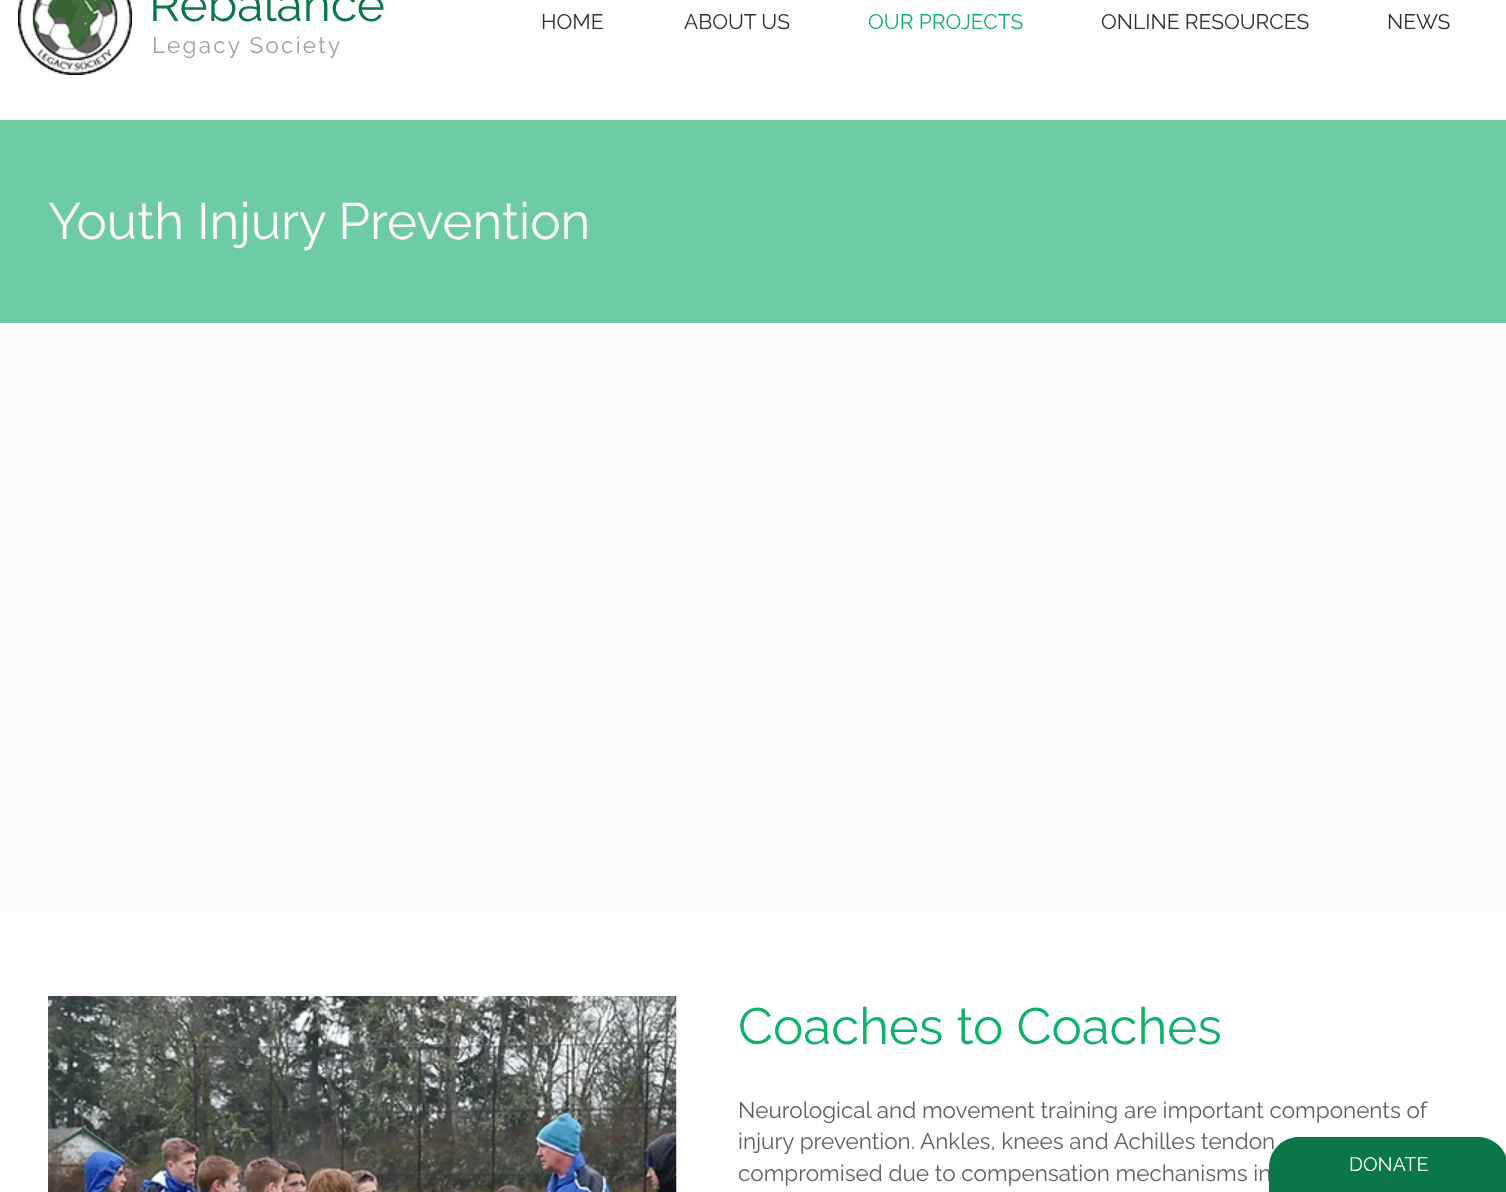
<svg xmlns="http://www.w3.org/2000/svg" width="1506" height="1192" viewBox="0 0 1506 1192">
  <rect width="100%" height="100%" fill="#ffffff"/>
  <image x="18" y="0" width="114" height="75" href="img1.png"/>
  <text x="149" y="21" font-family="Raleway" font-size="48" fill="#097747">Rebalance</text>
  <text x="541" y="29" font-family="Raleway" font-size="21" fill="#2f2e2e">HOME</text>
  <text x="684" y="29" font-family="Raleway" font-size="21" fill="#2f2e2e">ABOUT US</text>
  <text x="868" y="29" font-family="Raleway" font-size="21" fill="#0db26b">OUR PROJECTS</text>
  <text x="1101" y="29" font-family="Raleway" font-size="21" fill="#2f2e2e">ONLINE RESOURCES</text>
  <text x="1387" y="29" font-family="Raleway" font-size="21" fill="#2f2e2e">NEWS</text>
  <text x="152" y="53" font-family="Raleway" font-size="22.5" letter-spacing="2.25" fill="#a0a09f">Legacy Society</text>
  <rect x="0" y="120" width="1506" height="203" fill="#6dcca3"/>
  <text x="48" y="239" font-family="Raleway" font-size="51" fill="#ffffff">Youth Injury Prevention</text>
  <rect x="0" y="323" width="1506" height="588" fill="#fafafa"/>
  <image x="48" y="996" width="629" height="196" href="img2.png"/>
  <text x="738" y="1044" font-family="Raleway" font-size="51" fill="#0db26b">Coaches to Coaches</text>
  <text x="738" y="1118" font-family="Raleway" font-size="22.5" fill="#605e5e">Neurological and movement training are important components of</text>
  <text x="738" y="1149" font-family="Raleway" font-size="22.5" fill="#605e5e">injury prevention. Ankles, knees and Achilles tendon</text>
  <text x="738" y="1181" font-family="Raleway" font-size="22.5" fill="#605e5e">compromised due to compensation mechanisms in</text>
  <path d="M1299 1137H1478C1494.5 1137 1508 1150.5 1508 1167V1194H1269V1167C1269 1150.5 1282.5 1137 1299 1137Z" fill="#097747"/>
  <text x="1349" y="1171" font-family="Raleway" font-size="19.5" fill="#ffffff">DONATE</text>
</svg>
